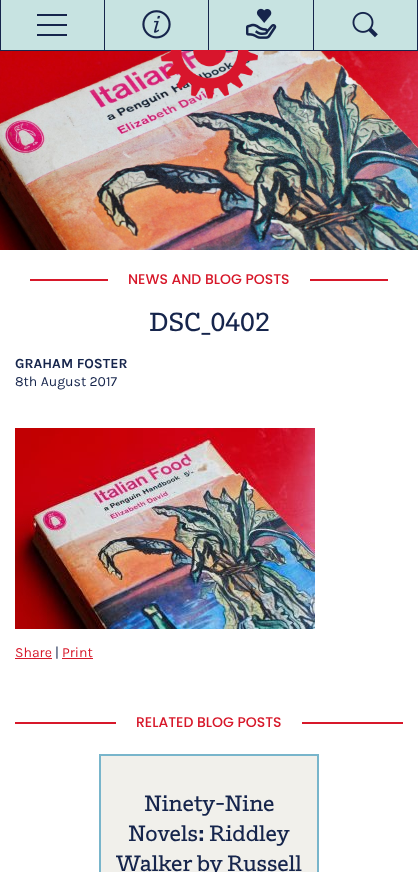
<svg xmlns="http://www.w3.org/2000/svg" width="418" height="872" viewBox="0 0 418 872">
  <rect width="100%" height="100%" fill="#ffffff"/>
  <rect x="1" y="0" width="416" height="50" fill="#c7e3e1"/>
  <rect x="0" y="50" width="418" height="1" fill="#16254c"/>
  <rect x="104" y="0" width="1" height="50" fill="#16254c"/>
  <rect x="0" y="0" width="1" height="50" fill="#16254c"/>
  <rect x="37" y="14" width="30" height="2" fill="#16254c"/>
  <rect x="37" y="24" width="30" height="2" fill="#16254c"/>
  <rect x="37" y="34" width="30" height="2" fill="#16254c"/>
  <rect x="208" y="0" width="1" height="50" fill="#16254c"/>
  <image x="142" y="10" width="29" height="29" href="img1.png"/>
  <rect x="313" y="0" width="1" height="50" fill="#16254c"/>
  <image x="246" y="8" width="31" height="31" href="img2.png"/>
  <rect x="417" y="0" width="1" height="50" fill="#16254c"/>
  <image x="352" y="11" width="26" height="27" href="img3.png"/>
  <image x="0" y="51" width="418" height="199" href="img5.png"/>
  <image x="160" y="50" width="98" height="49" href="img4.png"/>
  <rect x="30" y="279" width="78" height="2" fill="#d7182a"/>
  <text x="128" y="284" font-family="Poppins" font-size="14" font-weight="500" fill="#d7182a">NEWS AND BLOG POSTS</text>
  <rect x="310" y="279" width="78" height="2" fill="#d7182a"/>
  <text x="149" y="331" font-family="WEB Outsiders" font-size="26" font-weight="600" fill="#16254c">DSC_0402</text>
  <text x="15" y="368" font-family="Karla" font-size="14" font-weight="bold" fill="#16254c">GRAHAM FOSTER</text>
  <text x="15" y="386" font-family="Karla" font-size="14" fill="#16254c">8th August 2017</text>
  <image x="15" y="428" width="300" height="201" href="img6.png"/>
  <text x="15" y="657" font-family="Karla" font-size="14" fill="#d7182a">Share</text>
  <rect x="15" y="658" width="37" height="1" fill="#d7182a"/>
  <text x="55" y="657" font-family="Karla" font-size="14" fill="#16254c">|</text>
  <text x="62" y="657" font-family="Karla" font-size="14" fill="#d7182a">Print</text>
  <rect x="62" y="658" width="31" height="1" fill="#d7182a"/>
  <rect x="15" y="722" width="101" height="2" fill="#d7182a"/>
  <text x="136" y="727" font-family="Poppins" font-size="14" font-weight="500" fill="#d7182a">RELATED BLOG POSTS</text>
  <rect x="302" y="722" width="101" height="2" fill="#d7182a"/>
  <rect x="100" y="755" width="218" height="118" fill="#f1f0eb" stroke="#78b5cb" stroke-width="2"/>
  <text x="144" y="811" font-family="WEB Outsiders" font-size="22" font-weight="600" fill="#16254c">Ninety-Nine</text>
  <text x="128" y="841" font-family="WEB Outsiders" font-size="22" font-weight="600" fill="#16254c">Novels: Riddley</text>
  <text x="116" y="871" font-family="WEB Outsiders" font-size="22" font-weight="600" fill="#16254c">Walker by Russell</text>
</svg>
